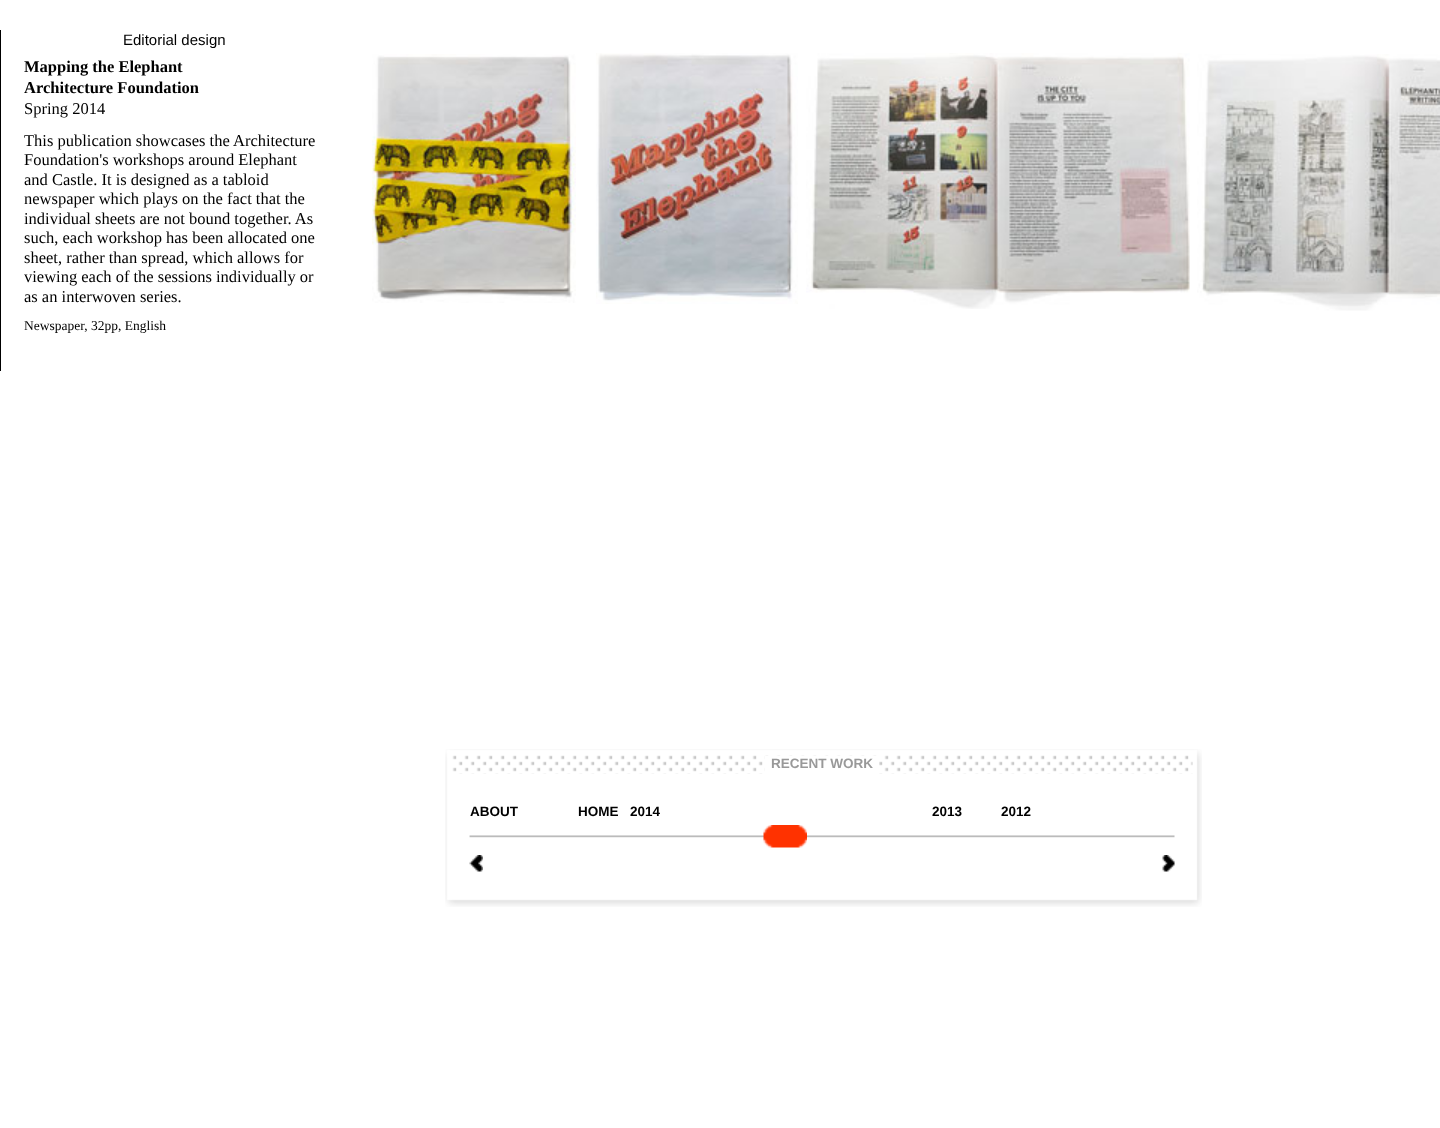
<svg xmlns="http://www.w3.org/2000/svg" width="1440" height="1128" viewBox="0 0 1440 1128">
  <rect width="100%" height="100%" fill="#ffffff"/>
  <rect x="0" y="30" width="1" height="341" fill="#000000"/>
  <text x="123" y="45" font-family="Liberation Sans" font-size="15" fill="#000000">Editorial design</text>
  <text x="24" y="72" font-family="Liberation Serif" font-size="16.5" font-weight="bold" fill="#000000">Mapping the Elephant</text>
  <text x="24" y="93" font-family="Liberation Serif" font-size="16.5" font-weight="bold" fill="#000000">Architecture Foundation</text>
  <text x="24" y="114" font-family="Liberation Serif" font-size="16.5" fill="#000000">Spring 2014</text>
  <text x="24" y="146" font-family="Liberation Serif" font-size="16.5" fill="#000000">This publication showcases the Architecture</text>
  <text x="24" y="165" font-family="Liberation Serif" font-size="16.5" fill="#000000">Foundation's workshops around Elephant</text>
  <text x="24" y="185" font-family="Liberation Serif" font-size="16.5" fill="#000000">and Castle. It is designed as a tabloid</text>
  <text x="24" y="204" font-family="Liberation Serif" font-size="16.5" fill="#000000">newspaper which plays on the fact that the</text>
  <text x="24" y="224" font-family="Liberation Serif" font-size="16.5" fill="#000000">individual sheets are not bound together. As</text>
  <text x="24" y="243" font-family="Liberation Serif" font-size="16.5" fill="#000000">such, each workshop has been allocated one</text>
  <text x="24" y="263" font-family="Liberation Serif" font-size="16.5" fill="#000000">sheet, rather than spread, which allows for</text>
  <text x="24" y="282" font-family="Liberation Serif" font-size="16.5" fill="#000000">viewing each of the sessions individually or</text>
  <text x="24" y="302" font-family="Liberation Serif" font-size="16.5" fill="#000000">as an interwoven series.</text>
  <text x="24" y="330" font-family="Liberation Serif" font-size="13.5" fill="#000000">Newspaper, 32pp, English</text>
  <image x="372" y="54" width="204" height="249" href="img1.png"/>
  <image x="596" y="53" width="202" height="251" href="img2.png"/>
  <image x="806" y="53" width="384" height="256" href="img3.png"/>
  <image x="1197" y="54" width="243" height="257" href="img4.png"/>
  <image x="445" y="749" width="757" height="158" href="img5.png"/>
  <image x="452" y="755" width="741" height="19" href="img6.png"/>
  <rect x="765" y="756" width="114" height="18" fill="#ffffff"/>
  <text x="771" y="768" font-family="Liberation Sans" font-size="13.5" font-weight="bold" fill="#999999">RECENT WORK</text>
  <text x="470" y="816" font-family="Liberation Sans" font-size="13.5" font-weight="bold" fill="#000000">ABOUT</text>
  <text x="578" y="816" font-family="Liberation Sans" font-size="13.5" font-weight="bold" fill="#000000">HOME</text>
  <text x="630" y="816" font-family="Liberation Sans" font-size="13.5" font-weight="bold" fill="#000000">2014</text>
  <text x="932" y="816" font-family="Liberation Sans" font-size="13.5" font-weight="bold" fill="#000000">2013</text>
  <text x="1001" y="816" font-family="Liberation Sans" font-size="13.5" font-weight="bold" fill="#000000">2012</text>
  <image x="763" y="825" width="44" height="23" href="img7.png"/>
  <image x="469" y="855" width="14" height="17" href="img8.png"/>
  <image x="1162" y="855" width="13" height="17" href="img9.png"/>
</svg>
